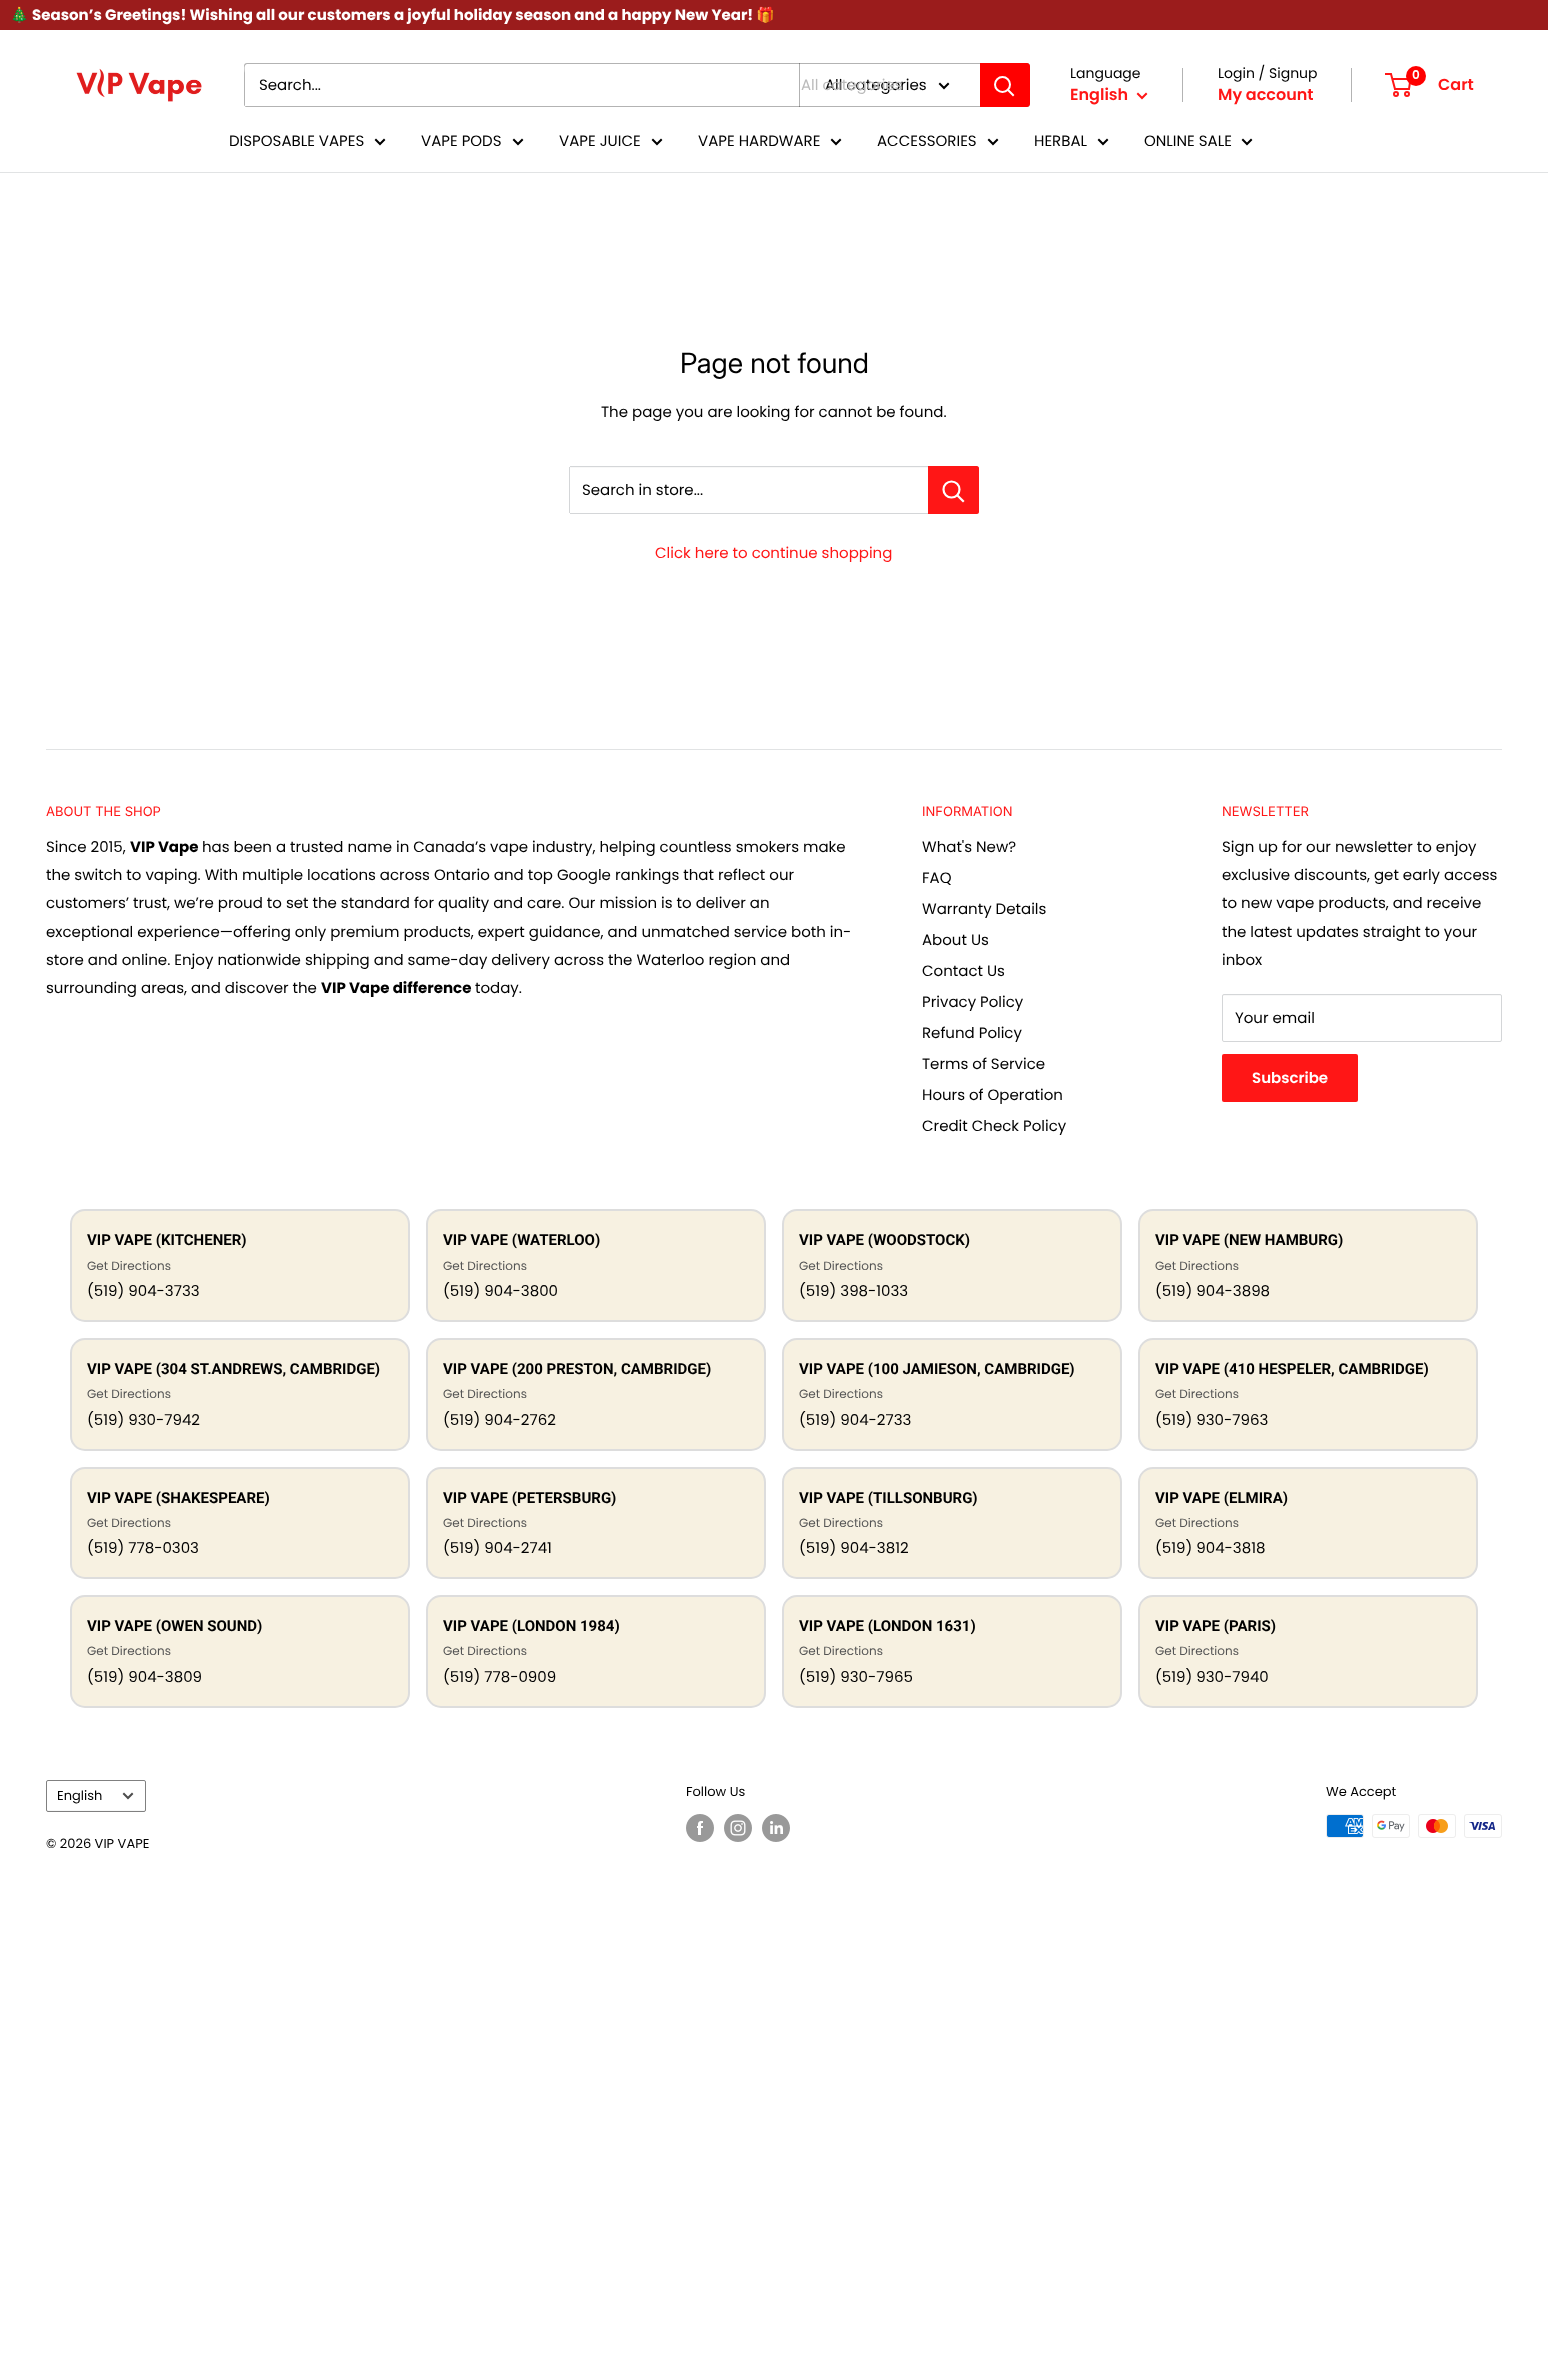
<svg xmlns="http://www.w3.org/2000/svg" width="1548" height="2353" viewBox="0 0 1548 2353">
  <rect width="100%" height="100%" fill="#ffffff"/>
  <rect x="0" y="0" width="1548" height="30" fill="#9b1c1c"/>
  <text x="10" y="20" font-family="Noto Color Emoji" font-size="15" font-weight="bold" fill="#ffffff">🎄</text>
  <text x="32" y="20" font-family="Poppins" font-size="15" font-weight="bold" fill="#ffffff">Season’s Greetings! Wishing all our customers a joyful holiday season and a happy New Year!</text>
  <text x="756" y="20" font-family="Noto Color Emoji" font-size="15" font-weight="bold" fill="#ffffff">🎁</text>
  <image x="76" y="68" width="126" height="34" href="img1.png"/>
  <path d="M245 106C245 107 246 107 247 107H1027C1029 107 1030 106 1030 104V66C1030 65 1030 64 1029 64V97C1029 99 1031 106 1026 106Z" fill="#b3b3b3"/>
  <path d="M248 64H1029C1029 63 1028 63 1027 63H247C245 63 244 64 244 66V104C244 105 244 106 245 106V73C245 71 243 64 248 64Z" fill="#b3b3b3"/>
  <text x="259" y="90" font-family="Poppins" font-size="15" fill="#000000">Search...</text>
  <rect x="799" y="63" width="1" height="44" fill="#000000" fill-opacity="0.3"/>
  <text x="825" y="90" font-family="Poppins" font-size="15" fill="#000000">All categories</text>
  <text x="801" y="90" font-family="Poppins" font-size="15" fill="#bbbbbb">All categories</text>
  <path d="M948 84L944 88L940 84" fill="none" stroke="#000000" stroke-width="2" stroke-linecap="square"/>
  <path d="M980 63H1027C1028.5 63 1030 64.5 1030 66V104C1030 105.5 1028.5 107 1027 107H980Z" fill="#ff0000"/>
  <path d="M1013 95L1008 90" fill="none" stroke="#ffffff" stroke-width="2" stroke-linecap="square"/>
  <circle cx="1002.5" cy="84.5" r="7.5" fill="none" stroke="#ffffff" stroke-width="2"/>
  <text x="1070" y="78" font-family="Poppins" font-size="14" fill="#000000">Language</text>
  <text x="1070" y="100" font-family="Poppins" font-size="16" font-weight="600" fill="#ff1616">English</text>
  <path d="M1146 94L1142 98L1138 94" fill="none" stroke="#ff1616" stroke-width="2" stroke-linecap="square"/>
  <rect x="1182" y="68" width="1" height="34" fill="#b3b3b3"/>
  <text x="1218" y="78" font-family="Poppins" font-size="14" fill="#000000">Login / Signup</text>
  <rect x="1351" y="68" width="1" height="34" fill="#b3b3b3"/>
  <text x="1218" y="100" font-family="Poppins" font-size="16" font-weight="600" fill="#ff1616">My account</text>
  <circle cx="1396" cy="94" r="2" fill="none" stroke="#ff1616" stroke-width="2"/>
  <circle cx="1407" cy="94" r="2" fill="none" stroke="#ff1616" stroke-width="2"/>
  <path d="M1392.5 79H1410.5L1409 89H1395L1391 74H1385" fill="none" stroke="#ff1616" stroke-width="2"/>
  <circle cx="1416" cy="76" r="10" fill="#ff0000"/>
  <text x="1412" y="79" font-family="Poppins" font-size="12" font-weight="600" fill="#ffffff">0</text>
  <text x="1438" y="90" font-family="Poppins" font-size="16" font-weight="600" fill="#ff1616">Cart</text>
  <rect x="0" y="172" width="1548" height="1" fill="#e1e3e4"/>
  <text x="229" y="146" font-family="Poppins" font-size="15" fill="#000000">DISPOSABLE VAPES</text>
  <path d="M384 140L380 144L376 140" fill="none" stroke="#000000" stroke-width="2" stroke-linecap="square"/>
  <text x="421" y="146" font-family="Poppins" font-size="15" fill="#000000">VAPE PODS</text>
  <path d="M522 140L518 144L514 140" fill="none" stroke="#000000" stroke-width="2" stroke-linecap="square"/>
  <text x="559" y="146" font-family="Poppins" font-size="15" fill="#000000">VAPE JUICE</text>
  <path d="M661 140L657 144L653 140" fill="none" stroke="#000000" stroke-width="2" stroke-linecap="square"/>
  <text x="698" y="146" font-family="Poppins" font-size="15" fill="#000000">VAPE HARDWARE</text>
  <path d="M840 140L836 144L832 140" fill="none" stroke="#000000" stroke-width="2" stroke-linecap="square"/>
  <text x="877" y="146" font-family="Poppins" font-size="15" fill="#000000">ACCESSORIES</text>
  <path d="M997 140L993 144L989 140" fill="none" stroke="#000000" stroke-width="2" stroke-linecap="square"/>
  <text x="1034" y="146" font-family="Poppins" font-size="15" fill="#000000">HERBAL</text>
  <path d="M1107 140L1103 144L1099 140" fill="none" stroke="#000000" stroke-width="2" stroke-linecap="square"/>
  <text x="1144" y="146" font-family="Poppins" font-size="15" fill="#000000">ONLINE SALE</text>
  <path d="M1251 140L1247 144L1243 140" fill="none" stroke="#000000" stroke-width="2" stroke-linecap="square"/>
  <text x="680" y="373" font-family="Inter" font-size="28" fill="#000000">Page not found</text>
  <text x="601" y="417" font-family="Poppins" font-size="15" fill="#000000">The page you are looking for cannot be found.</text>
  <path d="M571 468H928V467H571C570 467 570 468 570 469C570 468 570 468 571 468Z" fill="#f8f8f8"/>
  <rect x="570" y="466" width="358" height="1" fill="#d4d6d8"/>
  <rect x="570" y="513" width="358" height="1" fill="#d4d6d8"/>
  <rect x="569" y="467" width="1" height="46" fill="#d4d6d8"/>
  <text x="582" y="495" font-family="Poppins" font-size="15" fill="#000000">Search in store...</text>
  <path d="M928 466H977C978 466 979 467 979 468V512C979 513 978 514 977 514H928Z" fill="#ff1616"/>
  <path d="M963 501L957.5 495.5" fill="none" stroke="#ffffff" stroke-width="2.2" stroke-linecap="square"/>
  <circle cx="951.5" cy="489.5" r="8" fill="none" stroke="#ffffff" stroke-width="2.2"/>
  <text x="655" y="558" font-family="Poppins" font-size="15" fill="#ff1616">Click here to continue shopping</text>
  <rect x="46" y="749" width="1456" height="1" fill="#e1e3e4"/>
  <text x="46" y="816" font-family="'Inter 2'" font-size="13" fill="#ff1616">ABOUT THE SHOP</text>
  <text x="46" y="852" font-family="Poppins" font-size="15" fill="#000000">Since 2015,</text>
  <text x="130" y="852" font-family="Poppins" font-size="15" font-weight="bold" fill="#000000">VIP Vape</text>
  <text x="202" y="852" font-family="Poppins" font-size="15" fill="#000000">has been a trusted name in Canada’s vape industry, helping countless smokers make</text>
  <text x="46" y="880" font-family="Poppins" font-size="15" fill="#000000">the switch to vaping. With multiple locations across Ontario and top Google rankings that reflect our</text>
  <text x="46" y="908" font-family="Poppins" font-size="15" fill="#000000">customers’ trust, we’re proud to set the standard for quality and care. Our mission is to deliver an</text>
  <text x="46" y="937" font-family="Poppins" font-size="15" fill="#000000">exceptional experience—offering only premium products, expert guidance, and unmatched service both in-</text>
  <text x="46" y="965" font-family="Poppins" font-size="15" fill="#000000">store and online. Enjoy nationwide shipping and same-day delivery across the Waterloo region and</text>
  <text x="46" y="993" font-family="Poppins" font-size="15" fill="#000000">surrounding areas, and discover the</text>
  <text x="321" y="993" font-family="Poppins" font-size="15" font-weight="bold" fill="#000000">VIP Vape difference</text>
  <text x="475" y="993" font-family="Poppins" font-size="15" fill="#000000">today.</text>
  <text x="922" y="816" font-family="'Inter 2'" font-size="13" fill="#ff1616">INFORMATION</text>
  <text x="922" y="852" font-family="Poppins" font-size="15" fill="#000000">What's New?</text>
  <text x="922" y="883" font-family="Poppins" font-size="15" fill="#000000">FAQ</text>
  <text x="922" y="914" font-family="Poppins" font-size="15" fill="#000000">Warranty Details</text>
  <text x="922" y="945" font-family="Poppins" font-size="15" fill="#000000">About Us</text>
  <text x="922" y="976" font-family="Poppins" font-size="15" fill="#000000">Contact Us</text>
  <text x="922" y="1007" font-family="Poppins" font-size="15" fill="#000000">Privacy Policy</text>
  <text x="922" y="1038" font-family="Poppins" font-size="15" fill="#000000">Refund Policy</text>
  <text x="922" y="1069" font-family="Poppins" font-size="15" fill="#000000">Terms of Service</text>
  <text x="922" y="1100" font-family="Poppins" font-size="15" fill="#000000">Hours of Operation</text>
  <text x="922" y="1131" font-family="Poppins" font-size="15" fill="#000000">Credit Check Policy</text>
  <text x="1222" y="816" font-family="'Inter 2'" font-size="13" fill="#ff1616">NEWSLETTER</text>
  <text x="1222" y="852" font-family="Poppins" font-size="15" fill="#000000">Sign up for our newsletter to enjoy</text>
  <text x="1222" y="880" font-family="Poppins" font-size="15" fill="#000000">exclusive discounts, get early access</text>
  <text x="1222" y="908" font-family="Poppins" font-size="15" fill="#000000">to new vape products, and receive</text>
  <text x="1222" y="937" font-family="Poppins" font-size="15" fill="#000000">the latest updates straight to your</text>
  <text x="1222" y="965" font-family="Poppins" font-size="15" fill="#000000">inbox</text>
  <path d="M1224 996H1500C1501 996 1501 996 1501 997C1501 996 1501 995 1500 995H1224H1223V997C1223 996 1223 996 1224 996Z" fill="#f8f8f8"/>
  <rect x="1222.5" y="994.5" width="279" height="47" rx="1.5" fill="none" stroke="#d4d6d8"/>
  <text x="1235" y="1023" font-family="Poppins" font-size="15" fill="#000000">Your email</text>
  <rect x="1222" y="1054" width="136" height="48" rx="2" fill="#ff1616"/>
  <text x="1252" y="1083" font-family="Poppins" font-size="15" font-weight="600" fill="#ffffff">Subscribe</text>
  <rect x="71" y="1210" width="338" height="111" rx="14" fill="#f7f1e1" stroke="#dddddd" stroke-width="2"/>
  <text x="87" y="1245" font-family="Roboto" font-size="15" font-weight="bold" fill="#000000">VIP VAPE (KITCHENER)</text>
  <text x="87" y="1270" font-family="Poppins" font-size="12" fill="#555555">Get Directions</text>
  <text x="87" y="1296" font-family="Poppins" font-size="15" fill="#000000">(519) 904-3733</text>
  <rect x="427" y="1210" width="338" height="111" rx="14" fill="#f7f1e1" stroke="#dddddd" stroke-width="2"/>
  <text x="443" y="1245" font-family="Roboto" font-size="15" font-weight="bold" fill="#000000">VIP VAPE (WATERLOO)</text>
  <text x="443" y="1270" font-family="Poppins" font-size="12" fill="#555555">Get Directions</text>
  <text x="443" y="1296" font-family="Poppins" font-size="15" fill="#000000">(519) 904-3800</text>
  <rect x="783" y="1210" width="338" height="111" rx="14" fill="#f7f1e1" stroke="#dddddd" stroke-width="2"/>
  <text x="799" y="1245" font-family="Roboto" font-size="15" font-weight="bold" fill="#000000">VIP VAPE (WOODSTOCK)</text>
  <text x="799" y="1270" font-family="Poppins" font-size="12" fill="#555555">Get Directions</text>
  <text x="799" y="1296" font-family="Poppins" font-size="15" fill="#000000">(519) 398-1033</text>
  <rect x="1139" y="1210" width="338" height="111" rx="14" fill="#f7f1e1" stroke="#dddddd" stroke-width="2"/>
  <text x="1155" y="1245" font-family="Roboto" font-size="15" font-weight="bold" fill="#000000">VIP VAPE (NEW HAMBURG)</text>
  <text x="1155" y="1270" font-family="Poppins" font-size="12" fill="#555555">Get Directions</text>
  <text x="1155" y="1296" font-family="Poppins" font-size="15" fill="#000000">(519) 904-3898</text>
  <rect x="71" y="1339" width="338" height="111" rx="14" fill="#f7f1e1" stroke="#dddddd" stroke-width="2"/>
  <text x="87" y="1374" font-family="Roboto" font-size="15" font-weight="bold" fill="#000000">VIP VAPE (304 ST.ANDREWS, CAMBRIDGE)</text>
  <text x="87" y="1398" font-family="Poppins" font-size="12" fill="#555555">Get Directions</text>
  <text x="87" y="1425" font-family="Poppins" font-size="15" fill="#000000">(519) 930-7942</text>
  <rect x="427" y="1339" width="338" height="111" rx="14" fill="#f7f1e1" stroke="#dddddd" stroke-width="2"/>
  <text x="443" y="1374" font-family="Roboto" font-size="15" font-weight="bold" fill="#000000">VIP VAPE (200 PRESTON, CAMBRIDGE)</text>
  <text x="443" y="1398" font-family="Poppins" font-size="12" fill="#555555">Get Directions</text>
  <text x="443" y="1425" font-family="Poppins" font-size="15" fill="#000000">(519) 904-2762</text>
  <rect x="783" y="1339" width="338" height="111" rx="14" fill="#f7f1e1" stroke="#dddddd" stroke-width="2"/>
  <text x="799" y="1374" font-family="Roboto" font-size="15" font-weight="bold" fill="#000000">VIP VAPE (100 JAMIESON, CAMBRIDGE)</text>
  <text x="799" y="1398" font-family="Poppins" font-size="12" fill="#555555">Get Directions</text>
  <text x="799" y="1425" font-family="Poppins" font-size="15" fill="#000000">(519) 904-2733</text>
  <rect x="1139" y="1339" width="338" height="111" rx="14" fill="#f7f1e1" stroke="#dddddd" stroke-width="2"/>
  <text x="1155" y="1374" font-family="Roboto" font-size="15" font-weight="bold" fill="#000000">VIP VAPE (410 HESPELER, CAMBRIDGE)</text>
  <text x="1155" y="1398" font-family="Poppins" font-size="12" fill="#555555">Get Directions</text>
  <text x="1155" y="1425" font-family="Poppins" font-size="15" fill="#000000">(519) 930-7963</text>
  <rect x="71" y="1468" width="338" height="110" rx="14" fill="#f7f1e1" stroke="#dddddd" stroke-width="2"/>
  <text x="87" y="1503" font-family="Roboto" font-size="15" font-weight="bold" fill="#000000">VIP VAPE (SHAKESPEARE)</text>
  <text x="87" y="1527" font-family="Poppins" font-size="12" fill="#555555">Get Directions</text>
  <text x="87" y="1553" font-family="Poppins" font-size="15" fill="#000000">(519) 778-0303</text>
  <rect x="427" y="1468" width="338" height="110" rx="14" fill="#f7f1e1" stroke="#dddddd" stroke-width="2"/>
  <text x="443" y="1503" font-family="Roboto" font-size="15" font-weight="bold" fill="#000000">VIP VAPE (PETERSBURG)</text>
  <text x="443" y="1527" font-family="Poppins" font-size="12" fill="#555555">Get Directions</text>
  <text x="443" y="1553" font-family="Poppins" font-size="15" fill="#000000">(519) 904-2741</text>
  <rect x="783" y="1468" width="338" height="110" rx="14" fill="#f7f1e1" stroke="#dddddd" stroke-width="2"/>
  <text x="799" y="1503" font-family="Roboto" font-size="15" font-weight="bold" fill="#000000">VIP VAPE (TILLSONBURG)</text>
  <text x="799" y="1527" font-family="Poppins" font-size="12" fill="#555555">Get Directions</text>
  <text x="799" y="1553" font-family="Poppins" font-size="15" fill="#000000">(519) 904-3812</text>
  <rect x="1139" y="1468" width="338" height="110" rx="14" fill="#f7f1e1" stroke="#dddddd" stroke-width="2"/>
  <text x="1155" y="1503" font-family="Roboto" font-size="15" font-weight="bold" fill="#000000">VIP VAPE (ELMIRA)</text>
  <text x="1155" y="1527" font-family="Poppins" font-size="12" fill="#555555">Get Directions</text>
  <text x="1155" y="1553" font-family="Poppins" font-size="15" fill="#000000">(519) 904-3818</text>
  <rect x="71" y="1596" width="338" height="111" rx="14" fill="#f7f1e1" stroke="#dddddd" stroke-width="2"/>
  <text x="87" y="1631" font-family="Roboto" font-size="15" font-weight="bold" fill="#000000">VIP VAPE (OWEN SOUND)</text>
  <text x="87" y="1655" font-family="Poppins" font-size="12" fill="#555555">Get Directions</text>
  <text x="87" y="1682" font-family="Poppins" font-size="15" fill="#000000">(519) 904-3809</text>
  <rect x="427" y="1596" width="338" height="111" rx="14" fill="#f7f1e1" stroke="#dddddd" stroke-width="2"/>
  <text x="443" y="1631" font-family="Roboto" font-size="15" font-weight="bold" fill="#000000">VIP VAPE (LONDON 1984)</text>
  <text x="443" y="1655" font-family="Poppins" font-size="12" fill="#555555">Get Directions</text>
  <text x="443" y="1682" font-family="Poppins" font-size="15" fill="#000000">(519) 778-0909</text>
  <rect x="783" y="1596" width="338" height="111" rx="14" fill="#f7f1e1" stroke="#dddddd" stroke-width="2"/>
  <text x="799" y="1631" font-family="Roboto" font-size="15" font-weight="bold" fill="#000000">VIP VAPE (LONDON 1631)</text>
  <text x="799" y="1655" font-family="Poppins" font-size="12" fill="#555555">Get Directions</text>
  <text x="799" y="1682" font-family="Poppins" font-size="15" fill="#000000">(519) 930-7965</text>
  <rect x="1139" y="1596" width="338" height="111" rx="14" fill="#f7f1e1" stroke="#dddddd" stroke-width="2"/>
  <text x="1155" y="1631" font-family="Roboto" font-size="15" font-weight="bold" fill="#000000">VIP VAPE (PARIS)</text>
  <text x="1155" y="1655" font-family="Poppins" font-size="12" fill="#555555">Get Directions</text>
  <text x="1155" y="1682" font-family="Poppins" font-size="15" fill="#000000">(519) 930-7940</text>
  <path d="M47 1809C47 1810 47 1811 48 1811H144C145 1811 145 1810 145 1809C145 1810 145 1810 144 1810H48C47 1810 47 1810 47 1809Z" fill="#f6f7f7"/>
  <rect x="46.5" y="1780.5" width="99" height="31" rx="1.5" fill="none" stroke="#808080"/>
  <text x="57" y="1800" font-family="Poppins" font-size="13" fill="#000000">English</text>
  <path d="M132 1794L128 1798L124 1794" fill="none" stroke="#4d4d4d" stroke-width="2" stroke-linecap="square"/>
  <text x="46" y="1848" font-family="Poppins" font-size="13" fill="#000000">© 2026 VIP VAPE</text>
  <text x="686" y="1796" font-family="Poppins" font-size="13" fill="#000000">Follow Us</text>
  <image x="686" y="1814" width="28" height="28" href="img2.png"/>
  <image x="724" y="1814" width="28" height="28" href="img3.png"/>
  <image x="762" y="1814" width="28" height="28" href="img4.png"/>
  <text x="1326" y="1796" font-family="Poppins" font-size="13" fill="#000000">We Accept</text>
  <image x="1326" y="1814" width="38" height="24" href="img5.png"/>
  <image x="1372" y="1814" width="38" height="24" href="img6.png"/>
  <image x="1418" y="1814" width="38" height="24" href="img7.png"/>
  <image x="1464" y="1814" width="38" height="24" href="img8.png"/>
</svg>
